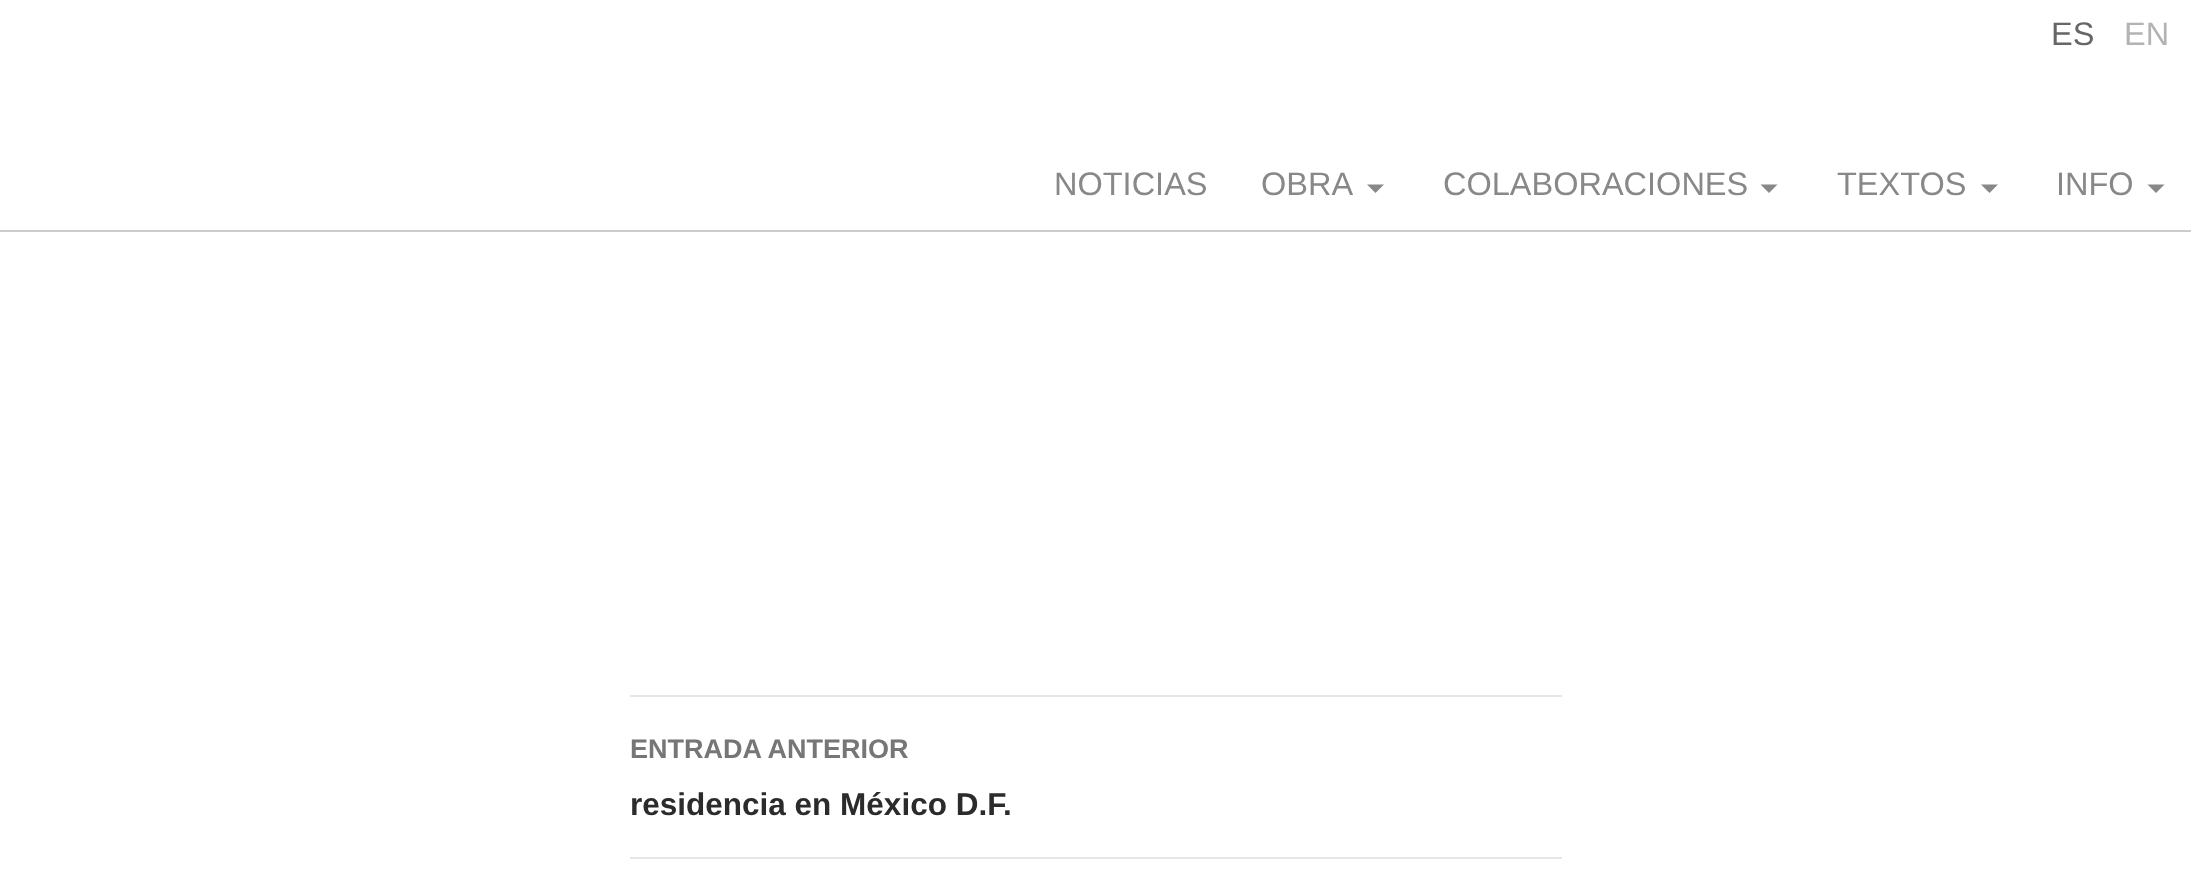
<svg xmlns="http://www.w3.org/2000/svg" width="2191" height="869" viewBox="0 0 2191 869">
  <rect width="100%" height="100%" fill="#ffffff"/>
  <rect x="0" y="230" width="2191" height="2" fill="#cccccc"/>
  <text x="2051" y="45" font-family="Liberation Sans" font-size="32.5" fill="#666666">ES</text>
  <text x="2124" y="45" font-family="Liberation Sans" font-size="32.5" fill="#b3b3b3">EN</text>
  <text x="1054" y="195" font-family="Liberation Sans" font-size="32.5" fill="#888888">NOTICIAS</text>
  <text x="1261" y="195" font-family="Liberation Sans" font-size="32.5" fill="#888888">OBRA</text>
  <path d="M1367 184.5L1375.5 193L1384 184.5Z" fill="#888888"/>
  <text x="1443" y="195" font-family="Liberation Sans" font-size="32.5" fill="#888888">COLABORACIONES</text>
  <path d="M1760.5 184.5L1769 193L1777.5 184.5Z" fill="#888888"/>
  <text x="1837" y="195" font-family="Liberation Sans" font-size="32.5" fill="#888888">TEXTOS</text>
  <path d="M1981 184.5L1989.5 193L1998 184.5Z" fill="#888888"/>
  <text x="2056" y="195" font-family="Liberation Sans" font-size="32.5" fill="#888888">INFO</text>
  <path d="M2147.5 184.5L2156 193L2164.5 184.5Z" fill="#888888"/>
  <rect x="630" y="695" width="932" height="2" fill="#e6e6e6"/>
  <rect x="630" y="857" width="932" height="2" fill="#e6e6e6"/>
  <text x="630" y="758" font-family="Liberation Sans" font-size="27" font-weight="bold" fill="#767676">ENTRADA ANTERIOR</text>
  <text x="630" y="815" font-family="Liberation Sans" font-size="31.5" font-weight="bold" fill="#2b2b2b">residencia en México D.F.</text>
</svg>
